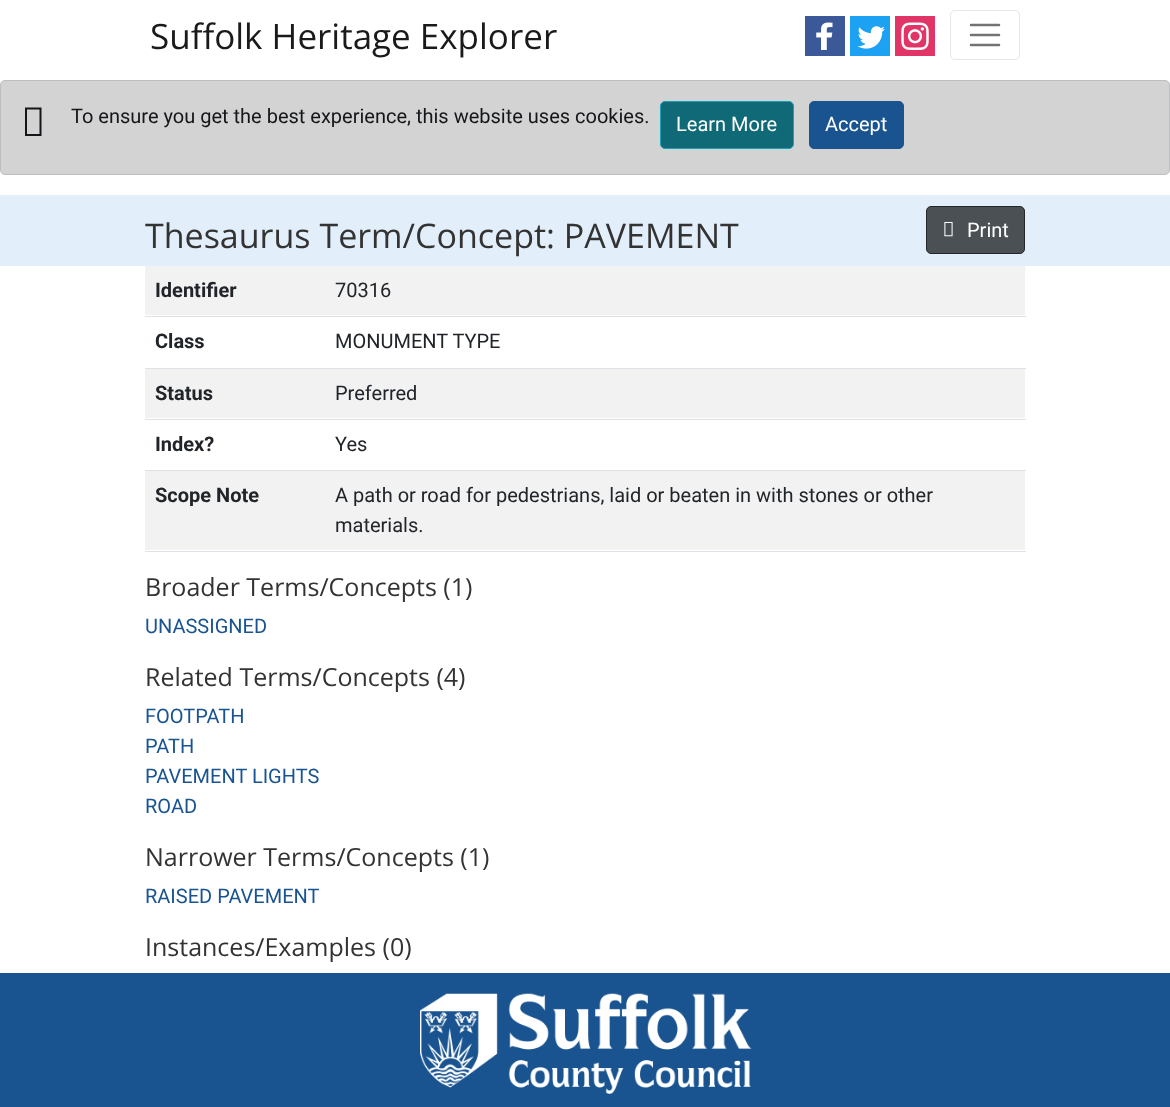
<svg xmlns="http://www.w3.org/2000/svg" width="1170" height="1107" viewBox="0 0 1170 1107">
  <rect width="100%" height="100%" fill="#ffffff"/>
  <text x="150" y="49" font-family="Open Sans" font-size="35" fill="#1a1a1a">Suffolk Heritage Explorer</text>
  <rect x="805" y="16" width="40" height="40" fill="#3b5998"/>
  <rect x="850" y="16" width="40" height="40" fill="#1da1f2"/>
  <rect x="895" y="16" width="40" height="40" fill="#e03566"/>
  <image x="816" y="22" width="17" height="28" href="img1.png"/>
  <image x="857" y="26" width="28" height="23" href="img2.png"/>
  <image x="901" y="22" width="28" height="28" href="img3.png"/>
  <rect x="950.5" y="10.5" width="69" height="49" rx="4.5" fill="none" stroke="#e6e6e6"/>
  <path d="M971 25H999M971 35H999M971 45H999" fill="none" stroke="#737373" stroke-width="2.5" stroke-linecap="round"/>
  <rect x="0.5" y="80.5" width="1169" height="94" rx="4.5" fill="#d3d3d4" stroke="#bcbebf"/>
  <path d="M25 136V107.5H41.5V136ZM27 134H39.5V109.5H27Z" fill="#141619"/>
  <text x="71" y="123" font-family="Roboto" font-size="20" fill="#141619">To ensure you get the best experience, this website uses cookies.</text>
  <rect x="660.5" y="101.5" width="133" height="47" rx="4.5" fill="#0f6977" stroke="#17a2b8"/>
  <text x="676" y="131" font-family="Roboto" font-size="20" fill="#ffffff">Learn More</text>
  <rect x="809.5" y="101.5" width="94" height="47" rx="4.5" fill="#195491" stroke="#195491"/>
  <text x="825" y="131" font-family="Roboto" font-size="20" fill="#ffffff">Accept</text>
  <rect x="0" y="195" width="1170" height="71" fill="#e2eefa"/>
  <text x="145" y="248" font-family="Open Sans" font-size="34" fill="#333333">Thesaurus Term/Concept: PAVEMENT</text>
  <rect x="926.5" y="206.5" width="98" height="47" rx="4.5" fill="#4b5054" stroke="#25282a"/>
  <image x="944" y="221" width="9" height="16" href="img4.png"/>
  <text x="967" y="237" font-family="Roboto" font-size="20" fill="#ffffff">Print</text>
  <rect x="145" y="266" width="880" height="49" fill="#f2f2f2"/>
  <text x="155" y="297" font-family="Roboto" font-size="20" font-weight="bold" fill="#212529">Identifier</text>
  <rect x="145" y="316" width="881" height="1" fill="#dee2e6"/>
  <text x="335" y="297" font-family="Roboto" font-size="20" fill="#212529">70316</text>
  <text x="155" y="348" font-family="Roboto" font-size="20" font-weight="bold" fill="#212529">Class</text>
  <rect x="145" y="368" width="881" height="1" fill="#dee2e6"/>
  <text x="335" y="348" font-family="Roboto" font-size="20" fill="#212529">MONUMENT TYPE</text>
  <rect x="145" y="369" width="880" height="49" fill="#f2f2f2"/>
  <text x="155" y="400" font-family="Roboto" font-size="20" font-weight="bold" fill="#212529">Status</text>
  <rect x="145" y="419" width="881" height="1" fill="#dee2e6"/>
  <text x="335" y="400" font-family="Roboto" font-size="20" fill="#212529">Preferred</text>
  <text x="155" y="451" font-family="Roboto" font-size="20" font-weight="bold" fill="#212529">Index?</text>
  <rect x="145" y="470" width="881" height="1" fill="#dee2e6"/>
  <text x="335" y="451" font-family="Roboto" font-size="20" fill="#212529">Yes</text>
  <rect x="145" y="471" width="880" height="79" fill="#f2f2f2"/>
  <text x="155" y="502" font-family="Roboto" font-size="20" font-weight="bold" fill="#212529">Scope Note</text>
  <rect x="145" y="551" width="881" height="1" fill="#dee2e6"/>
  <text x="335" y="502" font-family="Roboto" font-size="20" fill="#212529">A path or road for pedestrians, laid or beaten in with stones or other</text>
  <text x="335" y="532" font-family="Roboto" font-size="20" fill="#212529">materials.</text>
  <text x="145" y="596" font-family="Open Sans" font-size="25" fill="#333333">Broader Terms/Concepts (1)</text>
  <text x="145" y="633" font-family="Roboto" font-size="20" fill="#195491">UNASSIGNED</text>
  <text x="145" y="686" font-family="Open Sans" font-size="25" fill="#333333">Related Terms/Concepts (4)</text>
  <text x="145" y="723" font-family="Roboto" font-size="20" fill="#195491">FOOTPATH</text>
  <text x="145" y="753" font-family="Roboto" font-size="20" fill="#195491">PATH</text>
  <text x="145" y="783" font-family="Roboto" font-size="20" fill="#195491">PAVEMENT LIGHTS</text>
  <text x="145" y="813" font-family="Roboto" font-size="20" fill="#195491">ROAD</text>
  <text x="145" y="866" font-family="Open Sans" font-size="25" fill="#333333">Narrower Terms/Concepts (1)</text>
  <text x="145" y="903" font-family="Roboto" font-size="20" fill="#195491">RAISED PAVEMENT</text>
  <text x="145" y="956" font-family="Open Sans" font-size="25" fill="#333333">Instances/Examples (0)</text>
  <rect x="0" y="973" width="1170" height="134" fill="#195491"/>
  <image x="420" y="993" width="332" height="101" href="img5.png"/>
</svg>
